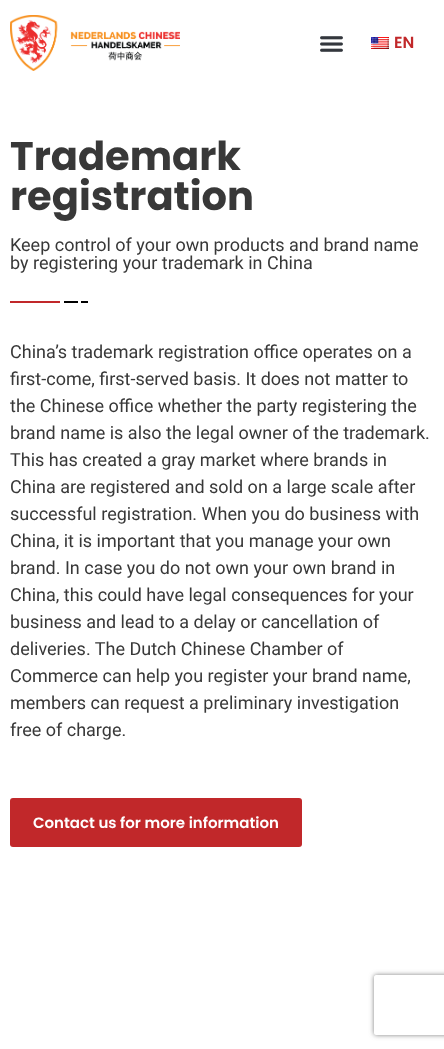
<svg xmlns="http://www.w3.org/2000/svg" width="444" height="1049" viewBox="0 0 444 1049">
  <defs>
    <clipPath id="clip1"><path d="M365 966H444V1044H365ZM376 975H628C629 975 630 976 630 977V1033C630 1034 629 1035 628 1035H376C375 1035 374 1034 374 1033V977C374 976 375 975 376 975Z" clip-rule="evenodd"/></clipPath>
    <filter id="blur1" x="-50%" y="-200%" width="200%" height="500%"><feGaussianBlur stdDeviation="2.5"/></filter>
  </defs>
  <rect width="100%" height="100%" fill="#ffffff"/>
  <image x="10" y="15" width="170" height="56" href="img1.png"/>
  <image x="320" y="36" width="23" height="16" href="img2.png"/>
  <image x="371" y="37" width="18" height="12" href="img3.png"/>
  <text x="394" y="48" font-family="Poppins" font-size="16" font-weight="600" fill="#c1282a">EN</text>
  <text x="10" y="170" font-family="Poppins" font-size="40" font-weight="bold" fill="#383838">Trademark</text>
  <text x="10" y="210" font-family="Poppins" font-size="40" font-weight="bold" fill="#383838">registration</text>
  <text x="10" y="251" font-family="Roboto" font-size="18" fill="#383838">Keep control of your own products and brand name</text>
  <text x="10" y="269" font-family="Roboto" font-size="18" fill="#383838">by registering your trademark in China</text>
  <rect x="10" y="301" width="50" height="2" fill="#c1282a"/>
  <rect x="64" y="301" width="14" height="2" fill="#000000"/>
  <rect x="81" y="301" width="7" height="2" fill="#000000"/>
  <text x="10" y="358" font-family="Roboto" font-size="18" fill="#383838">China’s trademark registration office operates on a</text>
  <text x="10" y="385" font-family="Roboto" font-size="18" fill="#383838">first-come, first-served basis. It does not matter to</text>
  <text x="10" y="412" font-family="Roboto" font-size="18" fill="#383838">the Chinese office whether the party registering the</text>
  <text x="10" y="439" font-family="Roboto" font-size="18" fill="#383838">brand name is also the legal owner of the trademark.</text>
  <text x="10" y="466" font-family="Roboto" font-size="18" fill="#383838">This has created a gray market where brands in</text>
  <text x="10" y="493" font-family="Roboto" font-size="18" fill="#383838">China are registered and sold on a large scale after</text>
  <text x="10" y="520" font-family="Roboto" font-size="18" fill="#383838">successful registration. When you do business with</text>
  <text x="10" y="547" font-family="Roboto" font-size="18" fill="#383838">China, it is important that you manage your own</text>
  <text x="10" y="574" font-family="Roboto" font-size="18" fill="#383838">brand. In case you do not own your own brand in</text>
  <text x="10" y="601" font-family="Roboto" font-size="18" fill="#383838">China, this could have legal consequences for your</text>
  <text x="10" y="628" font-family="Roboto" font-size="18" fill="#383838">business and lead to a delay or cancellation of</text>
  <text x="10" y="655" font-family="Roboto" font-size="18" fill="#383838">deliveries. The Dutch Chinese Chamber of</text>
  <text x="10" y="682" font-family="Roboto" font-size="18" fill="#383838">Commerce can help you register your brand name,</text>
  <text x="10" y="709" font-family="Roboto" font-size="18" fill="#383838">members can request a preliminary investigation</text>
  <text x="10" y="736" font-family="Roboto" font-size="18" fill="#383838">free of charge.</text>
  <rect x="10" y="798" width="292" height="49" rx="3" fill="#c1282a"/>
  <text x="33" y="828" font-family="Poppins" font-size="15" font-weight="600" fill="#ffffff">Contact us for more information</text>
  <g clip-path="url(#clip1)">
    <rect x="374" y="975" width="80" height="60" rx="2" fill="#808080" filter="url(#blur1)"/>
  </g>
</svg>
